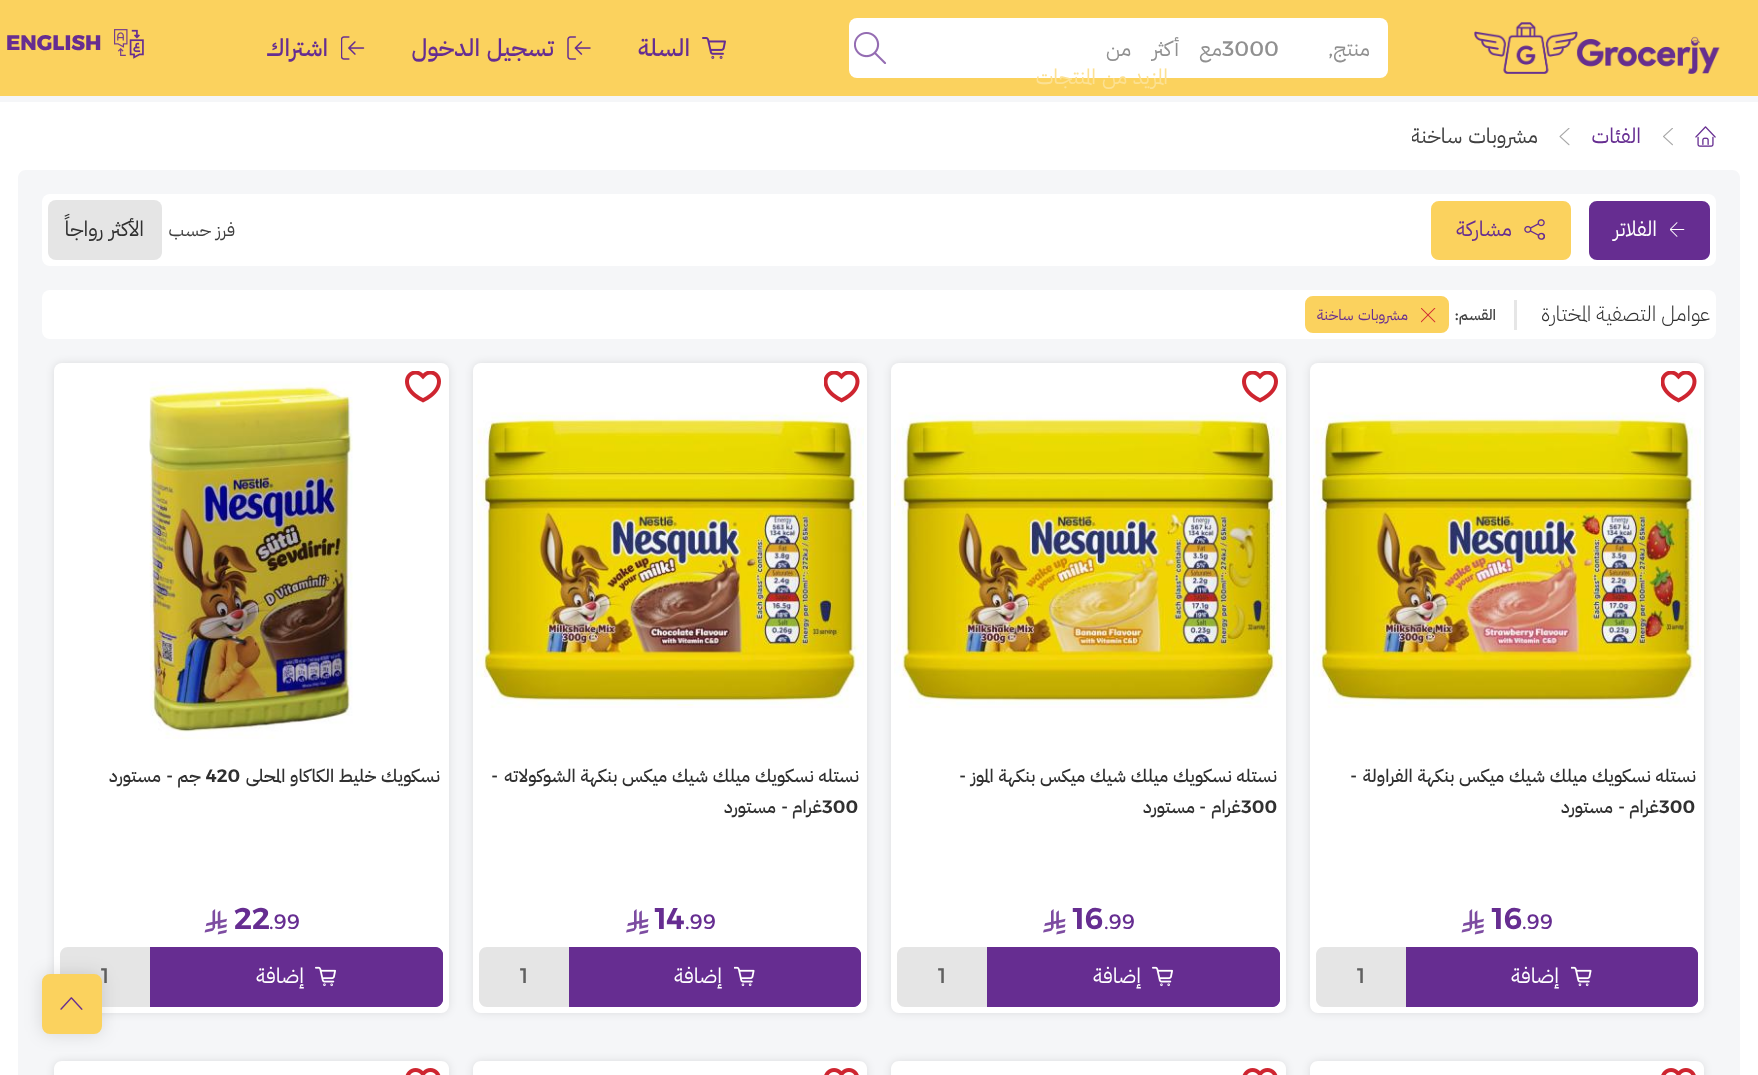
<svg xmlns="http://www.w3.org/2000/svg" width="1758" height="1075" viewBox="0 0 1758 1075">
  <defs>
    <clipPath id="clip1"><rect x="1412" y="120" width="126" height="32"/></clipPath>
    <filter id="blur1" x="-50%" y="-200%" width="200%" height="500%"><feGaussianBlur stdDeviation="4.5"/></filter>
    <filter id="blur2" x="-50%" y="-200%" width="200%" height="500%"><feGaussianBlur stdDeviation="9"/></filter>
  </defs>
  <rect width="100%" height="100%" fill="#f5f6f8"/>
  <rect x="0" y="0" width="1758" height="96" fill="#fbd25e"/>
  <image x="1474" y="22" width="246" height="52" href="img1.png"/>
  <rect x="849" y="18" width="539" height="60" rx="8" fill="#ffffff"/>
  <text x="1370" y="56" font-family="IBM Plex Sans Arabic" font-size="21" direction="rtl" fill="#909090">منتج</text>
  <text x="1333" y="56" font-family="Alexandria" font-size="21" direction="rtl" fill="#909090">,</text>
  <text x="1222" y="56" font-family="Alexandria" font-size="21" fill="#909090">3000</text>
  <text x="1222" y="56" word-spacing="16" font-family="IBM Plex Sans Arabic" font-size="21" direction="rtl" fill="#909090">مع أكثر من</text>
  <image x="854" y="32" width="33" height="32" href="img2.png"/>
  <text x="1168" y="84" word-spacing="1" font-family="IBM Plex Sans Arabic" font-size="21" direction="rtl" fill="#fce194">المزيد من المنتجات</text>
  <image x="702" y="37" width="24" height="22" href="img3.png"/>
  <text x="690" y="56" font-family="IBM Plex Sans Arabic" font-size="24" font-weight="500" direction="rtl" fill="#662d91">السلة</text>
  <image x="567" y="36" width="24" height="24" href="img4.png"/>
  <text x="554" y="56" word-spacing="1" font-family="IBM Plex Sans Arabic" font-size="24" font-weight="500" direction="rtl" fill="#662d91">تسجيل الدخول</text>
  <image x="341" y="36" width="24" height="24" href="img5.png"/>
  <text x="328" y="56" font-family="IBM Plex Sans Arabic" font-size="24" font-weight="500" direction="rtl" fill="#662d91">اشتراك</text>
  <image x="114" y="29" width="30" height="30" href="img6.png"/>
  <text x="6" y="50" font-family="Alexandria" font-size="21" font-weight="800" fill="#662d91">ENGLISH</text>
  <rect x="0" y="102" width="1758" height="973" fill="#ffffff"/>
  <image x="1695" y="126" width="21" height="21" href="img7.png"/>
  <image x="1663" y="128" width="10" height="18" href="img8.png"/>
  <text x="1641" y="143" font-family="IBM Plex Sans Arabic" font-size="21" direction="rtl" fill="#662d91">الفئات</text>
  <image x="1559" y="128" width="11" height="18" href="img9.png"/>
  <g clip-path="url(#clip1)">
    <text x="1538" y="143" word-spacing="1" font-family="IBM Plex Sans Arabic" font-size="21" direction="rtl" fill="#404040">مشروبات ساخنة</text>
  </g>
  <path d="M26 170H1732C1736.5 170 1740 173.5 1740 178V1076H18V178C18 173.5 21.5 170 26 170Z" fill="#f5f6f8"/>
  <rect x="42" y="194" width="1674" height="72" rx="8" fill="#ffffff"/>
  <rect x="1590" y="202" width="119" height="57" rx="7" fill="#662d91" stroke="#662d91" stroke-width="2"/>
  <image x="1670" y="222" width="15" height="15" href="img10.png"/>
  <text x="1657" y="236" font-family="IBM Plex Sans Arabic" font-size="21" direction="rtl" fill="#ffffff">الفلاتر</text>
  <rect x="1432" y="202" width="138" height="57" rx="7" fill="#fbd25e" stroke="#fbd25e" stroke-width="2"/>
  <image x="1524" y="219" width="21" height="21" href="img11.png"/>
  <text x="1512" y="236" font-family="IBM Plex Sans Arabic" font-size="21" direction="rtl" fill="#662d91">مشاركة</text>
  <text x="235" y="236" word-spacing="0.5" font-family="IBM Plex Sans Arabic" font-size="18" direction="rtl" fill="#404040">فرز حسب</text>
  <rect x="48" y="200" width="114" height="60" rx="8" fill="#e5e5e5"/>
  <text x="144" y="236" word-spacing="1" font-family="IBM Plex Sans Arabic" font-size="21" direction="rtl" fill="#303030">الأكثر رواجاً</text>
  <rect x="42" y="290" width="1674" height="49" rx="8" fill="#ffffff"/>
  <text x="1710" y="321" font-family="IBM Plex Sans Arabic" font-size="21" font-weight="300" direction="rtl" fill="#303030">عوامل التصفية المختارة</text>
  <rect x="1514" y="300" width="3" height="30" fill="#e6e6e6"/>
  <text x="1496" y="320" font-family="IBM Plex Sans Arabic" font-size="15" font-weight="500" direction="rtl" fill="#404040">القسم</text>
  <text x="1455" y="320" font-family="Alexandria" font-size="15" font-weight="600" fill="#404040">:</text>
  <rect x="1306" y="297" width="142" height="35" rx="7" fill="#fbd25e" stroke="#fbd25e" stroke-width="2"/>
  <image x="1421" y="308" width="15" height="15" href="img12.png"/>
  <text x="1408" y="320" word-spacing="1" font-family="IBM Plex Sans Arabic" font-size="15" direction="rtl" fill="#662d91">مشروبات ساخنة</text>
  <rect x="1310" y="363" width="394" height="650" rx="8" fill="#000000" fill-opacity="0.1" filter="url(#blur1)"/>
  <rect x="1310" y="363" width="394" height="650" rx="8" fill="#ffffff"/>
  <image x="1661" y="371" width="36" height="32" href="img13.png"/>
  <image x="1312" y="412" width="389" height="296" href="img14.png"/>
  <text x="1696" y="782" word-spacing="0.5" font-family="IBM Plex Sans Arabic" font-size="18" font-weight="500" direction="rtl" fill="#303030">نستله نسكويك ميلك شيك ميكس بنكهة الفراولة</text>
  <text x="1357" y="782" font-family="Alexandria" font-size="18" font-weight="600" direction="rtl" fill="#303030">-</text>
  <text x="1659" y="813" font-family="IBM Plex Sans Arabic" font-size="18" font-weight="500" direction="rtl" fill="#303030">غرام</text>
  <text x="1659" y="813" font-family="Alexandria" font-size="18" font-weight="600" fill="#303030">300</text>
  <text x="1625" y="813" font-family="Alexandria" font-size="18" font-weight="600" direction="rtl" fill="#303030">-</text>
  <text x="1613" y="813" font-family="IBM Plex Sans Arabic" font-size="18" font-weight="500" direction="rtl" fill="#303030">مستورد</text>
  <text x="1522" y="929" font-family="Alexandria" font-size="21" fill="#662d91">.99</text>
  <text x="1492" y="929" font-family="Alexandria" font-size="30" font-weight="600" fill="#662d91">16</text>
  <image x="1461" y="909" width="23" height="26" href="img15.png"/>
  <path d="M1406 947H1690C1694.5 947 1698 950.5 1698 955V999C1698 1003.5 1694.5 1007 1690 1007H1406Z" fill="#662d91"/>
  <path d="M1406 947V1007H1690C1694 1007 1698 1003 1698 999V955C1698 951 1694 947 1690 947Z" fill="#662d91"/>
  <image x="1571" y="966" width="21" height="21" href="img16.png"/>
  <text x="1559" y="983" font-family="IBM Plex Sans Arabic" font-size="21" direction="rtl" fill="#ffffff">إضافة</text>
  <path d="M1324 947H1406V1007H1324C1319.5 1007 1316 1003.5 1316 999V955C1316 950.5 1319.5 947 1324 947Z" fill="#e5e5e5"/>
  <text x="1357" y="983" font-family="Alexandria" font-size="21" fill="#606060">1</text>
  <rect x="891" y="363" width="395" height="650" rx="8" fill="#000000" fill-opacity="0.1" filter="url(#blur1)"/>
  <rect x="891" y="363" width="395" height="650" rx="8" fill="#ffffff"/>
  <image x="1242" y="371" width="36" height="32" href="img17.png"/>
  <image x="894" y="412" width="389" height="296" href="img18.png"/>
  <text x="1277" y="782" word-spacing="0.5" font-family="IBM Plex Sans Arabic" font-size="18" font-weight="500" direction="rtl" fill="#303030">نستله نسكويك ميلك شيك ميكس بنكهة الموز</text>
  <text x="966" y="782" font-family="Alexandria" font-size="18" font-weight="600" direction="rtl" fill="#303030">-</text>
  <text x="1241" y="813" font-family="Alexandria" font-size="18" font-weight="600" fill="#303030">300</text>
  <text x="1241" y="813" font-family="IBM Plex Sans Arabic" font-size="18" font-weight="500" direction="rtl" fill="#303030">غرام</text>
  <text x="1206" y="813" font-family="Alexandria" font-size="18" font-weight="600" direction="rtl" fill="#303030">-</text>
  <text x="1195" y="813" font-family="IBM Plex Sans Arabic" font-size="18" font-weight="500" direction="rtl" fill="#303030">مستورد</text>
  <text x="1104" y="929" font-family="Alexandria" font-size="21" fill="#662d91">.99</text>
  <text x="1073" y="929" font-family="Alexandria" font-size="30" font-weight="600" fill="#662d91">16</text>
  <image x="1043" y="909" width="23" height="26" href="img19.png"/>
  <path d="M987 947H1272C1276.5 947 1280 950.5 1280 955V999C1280 1003.5 1276.5 1007 1272 1007H987Z" fill="#662d91"/>
  <path d="M987 947V1007H1272C1276 1007 1280 1003 1280 999V955C1280 951 1276 947 1272 947Z" fill="#662d91"/>
  <image x="1152" y="966" width="21" height="21" href="img20.png"/>
  <text x="1141" y="983" font-family="IBM Plex Sans Arabic" font-size="21" direction="rtl" fill="#ffffff">إضافة</text>
  <path d="M905 947H987V1007H905C900.5 1007 897 1003.5 897 999V955C897 950.5 900.5 947 905 947Z" fill="#e5e5e5"/>
  <text x="938" y="983" font-family="Alexandria" font-size="21" fill="#606060">1</text>
  <rect x="473" y="363" width="394" height="650" rx="8" fill="#000000" fill-opacity="0.1" filter="url(#blur1)"/>
  <rect x="473" y="363" width="394" height="650" rx="8" fill="#ffffff"/>
  <image x="824" y="371" width="36" height="32" href="img13.png"/>
  <image x="475" y="412" width="389" height="296" href="img21.png"/>
  <text x="859" y="782" word-spacing="0.5" font-family="IBM Plex Sans Arabic" font-size="18" font-weight="500" direction="rtl" fill="#303030">نستله نسكويك ميلك شيك ميكس بنكهة الشوكولاته</text>
  <text x="498" y="782" font-family="Alexandria" font-size="18" font-weight="600" direction="rtl" fill="#303030">-</text>
  <text x="822" y="813" font-family="IBM Plex Sans Arabic" font-size="18" font-weight="500" direction="rtl" fill="#303030">غرام</text>
  <text x="822" y="813" font-family="Alexandria" font-size="18" font-weight="600" fill="#303030">300</text>
  <text x="788" y="813" font-family="Alexandria" font-size="18" font-weight="600" direction="rtl" fill="#303030">-</text>
  <text x="776" y="813" font-family="IBM Plex Sans Arabic" font-size="18" font-weight="500" direction="rtl" fill="#303030">مستورد</text>
  <text x="685" y="929" font-family="Alexandria" font-size="21" fill="#662d91">.99</text>
  <text x="655" y="929" font-family="Alexandria" font-size="30" font-weight="600" fill="#662d91">14</text>
  <image x="626" y="909" width="23" height="26" href="img19.png"/>
  <path d="M569 947H853C857.5 947 861 950.5 861 955V999C861 1003.5 857.5 1007 853 1007H569Z" fill="#662d91"/>
  <path d="M569 947V1007H853C857 1007 861 1003 861 999V955C861 951 857 947 853 947Z" fill="#662d91"/>
  <image x="734" y="966" width="21" height="21" href="img16.png"/>
  <text x="722" y="983" font-family="IBM Plex Sans Arabic" font-size="21" direction="rtl" fill="#ffffff">إضافة</text>
  <path d="M487 947H569V1007H487C482.5 1007 479 1003.5 479 999V955C479 950.5 482.5 947 487 947Z" fill="#e5e5e5"/>
  <text x="520" y="983" font-family="Alexandria" font-size="21" fill="#606060">1</text>
  <rect x="54" y="363" width="395" height="650" rx="8" fill="#000000" fill-opacity="0.1" filter="url(#blur1)"/>
  <rect x="54" y="363" width="395" height="650" rx="8" fill="#ffffff"/>
  <image x="405" y="371" width="36" height="32" href="img17.png"/>
  <image x="149" y="381" width="204" height="358" href="img22.png"/>
  <text x="440" y="782" word-spacing="0.5" font-family="IBM Plex Sans Arabic" font-size="18" font-weight="500" direction="rtl" fill="#303030">نسكويك خليط الكاكاو المحلى</text>
  <text x="206" y="782" font-family="Alexandria" font-size="18" font-weight="600" fill="#303030">420</text>
  <text x="201" y="782" font-family="IBM Plex Sans Arabic" font-size="18" font-weight="500" direction="rtl" fill="#303030">جم</text>
  <text x="173" y="782" font-family="Alexandria" font-size="18" font-weight="600" direction="rtl" fill="#303030">-</text>
  <text x="161" y="782" font-family="IBM Plex Sans Arabic" font-size="18" font-weight="500" direction="rtl" fill="#303030">مستورد</text>
  <text x="269" y="929" font-family="Alexandria" font-size="21" fill="#662d91">.99</text>
  <text x="234" y="929" font-family="Alexandria" font-size="30" font-weight="600" fill="#662d91">22</text>
  <image x="204" y="909" width="23" height="26" href="img15.png"/>
  <path d="M150 947H435C439.5 947 443 950.5 443 955V999C443 1003.5 439.5 1007 435 1007H150Z" fill="#662d91"/>
  <path d="M150 947V1007H435C439 1007 443 1003 443 999V955C443 951 439 947 435 947Z" fill="#662d91"/>
  <image x="315" y="966" width="21" height="21" href="img20.png"/>
  <text x="304" y="983" font-family="IBM Plex Sans Arabic" font-size="21" direction="rtl" fill="#ffffff">إضافة</text>
  <path d="M68 947H150V1007H68C63.5 1007 60 1003.5 60 999V955C60 950.5 63.5 947 68 947Z" fill="#e5e5e5"/>
  <text x="101" y="983" font-family="Alexandria" font-size="21" fill="#606060">1</text>
  <rect x="1310" y="1061" width="394" height="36" rx="8" fill="#000000" fill-opacity="0.1" filter="url(#blur1)"/>
  <path d="M1318 1061H1696C1700.5 1061 1704 1064.5 1704 1069V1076H1310V1069C1310 1064.5 1313.5 1061 1318 1061Z" fill="#ffffff"/>
  <image x="1661" y="1068" width="35" height="7" href="img23.png"/>
  <rect x="891" y="1061" width="395" height="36" rx="8" fill="#000000" fill-opacity="0.1" filter="url(#blur1)"/>
  <path d="M899 1061H1278C1282.5 1061 1286 1064.5 1286 1069V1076H891V1069C891 1064.5 894.5 1061 899 1061Z" fill="#ffffff"/>
  <image x="1242" y="1068" width="36" height="7" href="img24.png"/>
  <rect x="473" y="1061" width="394" height="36" rx="8" fill="#000000" fill-opacity="0.1" filter="url(#blur1)"/>
  <path d="M481 1061H859C863.5 1061 867 1064.5 867 1069V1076H473V1069C473 1064.5 476.5 1061 481 1061Z" fill="#ffffff"/>
  <image x="824" y="1068" width="35" height="7" href="img23.png"/>
  <rect x="54" y="1061" width="395" height="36" rx="8" fill="#000000" fill-opacity="0.1" filter="url(#blur1)"/>
  <path d="M62 1061H441C445.5 1061 449 1064.5 449 1069V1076H54V1069C54 1064.5 57.5 1061 62 1061Z" fill="#ffffff"/>
  <image x="405" y="1068" width="36" height="7" href="img24.png"/>
  <rect x="42" y="974" width="60" height="60" rx="8" fill="#000000" fill-opacity="0.13" filter="url(#blur2)"/>
  <rect x="43" y="975" width="58" height="58" rx="7" fill="#fbd25e" stroke="#fbd25e" stroke-width="2"/>
  <image x="60" y="997" width="23" height="13" href="img25.png"/>
</svg>
